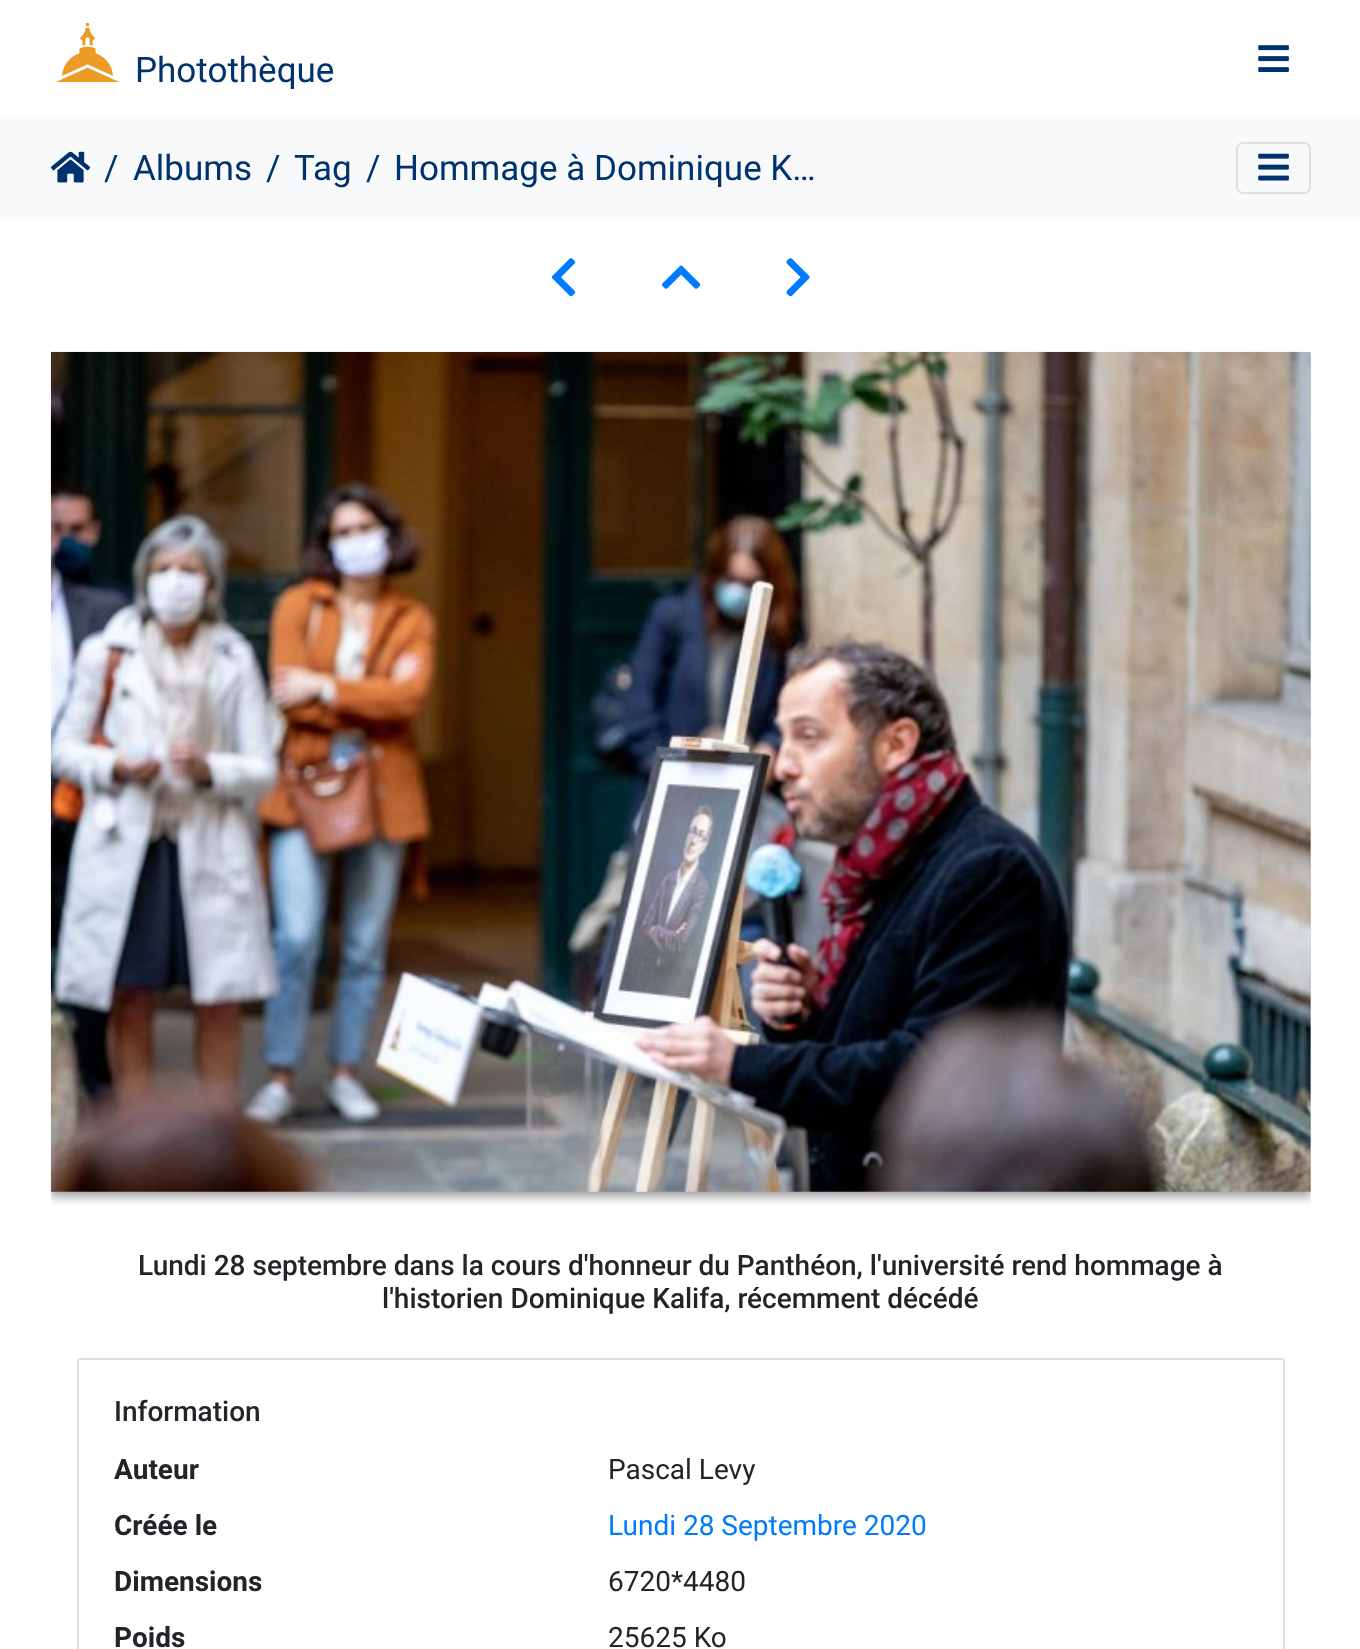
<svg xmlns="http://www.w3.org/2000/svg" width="1360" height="1649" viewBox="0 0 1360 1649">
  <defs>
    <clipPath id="clip1"><rect x="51" y="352" width="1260" height="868"/></clipPath>
    <filter id="blur1" x="-50%" y="-200%" width="200%" height="500%"><feGaussianBlur stdDeviation="5"/></filter>
  </defs>
  <rect width="100%" height="100%" fill="#ffffff"/>
  <image x="56" y="23" width="63" height="59" href="img1.png"/>
  <text x="135" y="82" font-family="Roboto" font-size="35" fill="#00326e">Photothèque</text>
  <image x="1258" y="45" width="31" height="27" href="img2.png"/>
  <rect x="0" y="119" width="1360" height="98" fill="#f8f9fa"/>
  <image x="51" y="151" width="40" height="32" href="img3.png"/>
  <text x="104" y="180" font-family="Roboto" font-size="35" fill="#00326e">/</text>
  <text x="133" y="180" font-family="Roboto" font-size="35" fill="#00326e">Albums</text>
  <text x="266" y="180" font-family="Roboto" font-size="35" fill="#00326e">/</text>
  <text x="294" y="180" font-family="Roboto" font-size="35" fill="#00326e">Tag</text>
  <text x="366" y="180" font-family="Roboto" font-size="35" fill="#00326e">/</text>
  <text x="394" y="180" font-family="Roboto" font-size="35" fill="#00326e">Hommage à Dominique K…</text>
  <rect x="1237" y="143" width="73" height="50" rx="6" fill="none" stroke="#dfe0e1" stroke-width="2"/>
  <image x="1258" y="153" width="31" height="28" href="img4.png"/>
  <image x="551" y="258" width="25" height="39" href="img5.png"/>
  <image x="662" y="265" width="39" height="24" href="img6.png"/>
  <image x="786" y="258" width="24" height="39" href="img7.png"/>
  <g clip-path="url(#clip1)">
    <rect x="51" y="357" width="1260" height="840" fill="#000000" fill-opacity="0.23" filter="url(#blur1)"/>
    <rect x="51" y="357" width="1260" height="840" fill="#000000" fill-opacity="0.16" filter="url(#blur1)"/>
  </g>
  <image x="50" y="351" width="1261" height="841" href="img8.png"/>
  <text x="138" y="1275" font-family="Roboto" font-size="28" font-weight="500" fill="#212529">Lundi 28 septembre dans la cours d'honneur du Panthéon, l'université rend hommage à</text>
  <text x="382" y="1308" font-family="Roboto" font-size="28" font-weight="500" fill="#212529">l'historien Dominique Kalifa, récemment décédé</text>
  <rect x="78" y="1359" width="1206" height="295" rx="3" fill="none" stroke="#dfdfdf" stroke-width="2"/>
  <text x="114" y="1421" font-family="Roboto" font-size="28" font-weight="500" fill="#212529">Information</text>
  <text x="114" y="1479" font-family="Roboto" font-size="28" font-weight="bold" fill="#212529">Auteur</text>
  <text x="608" y="1479" font-family="Roboto" font-size="28" fill="#212529">Pascal Levy</text>
  <text x="114" y="1535" font-family="Roboto" font-size="28" font-weight="bold" fill="#212529">Créée le</text>
  <text x="608" y="1535" font-family="Roboto" font-size="28" fill="#007bff">Lundi 28 Septembre 2020</text>
  <text x="114" y="1591" font-family="Roboto" font-size="28" font-weight="bold" fill="#212529">Dimensions</text>
  <text x="608" y="1591" font-family="Roboto" font-size="28" fill="#212529">6720*4480</text>
  <text x="114" y="1647" font-family="Roboto" font-size="28" font-weight="bold" fill="#212529">Poids</text>
  <text x="608" y="1647" font-family="Roboto" font-size="28" fill="#212529">25625 Ko</text>
</svg>
